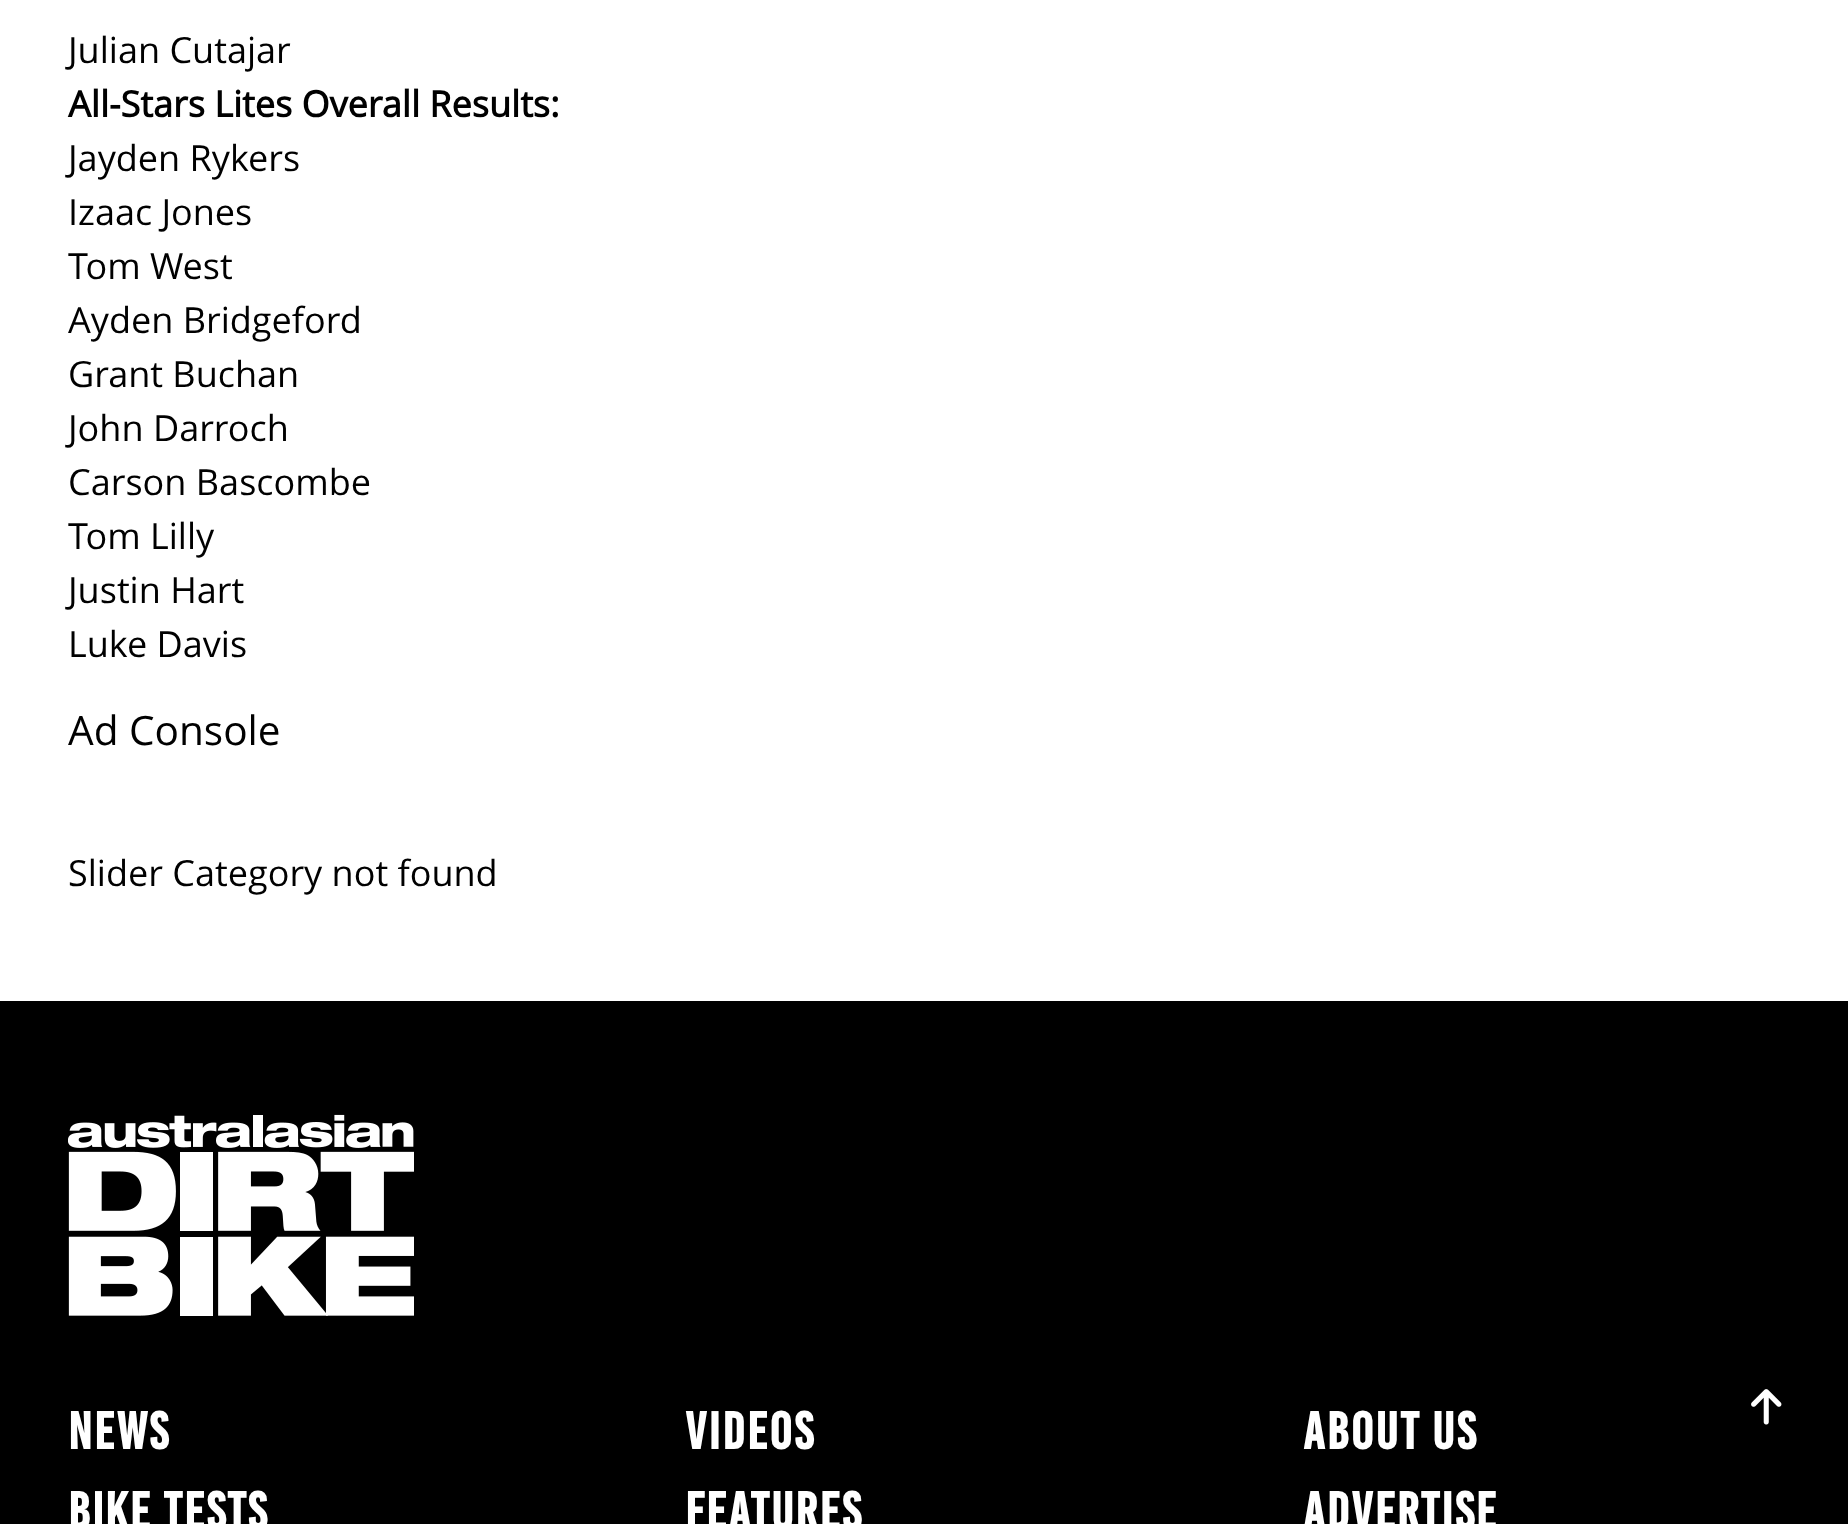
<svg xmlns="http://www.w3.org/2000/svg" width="1848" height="1524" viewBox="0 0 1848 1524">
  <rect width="100%" height="100%" fill="#ffffff"/>
  <text x="68" y="63" font-family="Open Sans" font-size="36" fill="#000000">Julian Cutajar</text>
  <text x="68" y="117" font-family="Open Sans" font-size="36" font-weight="bold" fill="#000000">All-Stars Lites Overall Results:</text>
  <text x="68" y="171" font-family="Open Sans" font-size="36" fill="#000000">Jayden Rykers</text>
  <text x="68" y="225" font-family="Open Sans" font-size="36" fill="#000000">Izaac Jones</text>
  <text x="68" y="279" font-family="Open Sans" font-size="36" fill="#000000">Tom West</text>
  <text x="68" y="333" font-family="Open Sans" font-size="36" fill="#000000">Ayden Bridgeford</text>
  <text x="68" y="387" font-family="Open Sans" font-size="36" fill="#000000">Grant Buchan</text>
  <text x="68" y="441" font-family="Open Sans" font-size="36" fill="#000000">John Darroch</text>
  <text x="68" y="495" font-family="Open Sans" font-size="36" fill="#000000">Carson Bascombe</text>
  <text x="68" y="549" font-family="Open Sans" font-size="36" fill="#000000">Tom Lilly</text>
  <text x="68" y="603" font-family="Open Sans" font-size="36" fill="#000000">Justin Hart</text>
  <text x="68" y="657" font-family="Open Sans" font-size="36" fill="#000000">Luke Davis</text>
  <text x="68" y="745" font-family="Open Sans" font-size="40.5" fill="#000000">Ad Console</text>
  <text x="68" y="886" font-family="Open Sans" font-size="36" fill="#000000">Slider Category not found</text>
  <rect x="0" y="1001" width="1848" height="523" fill="#000000"/>
  <image x="1751" y="1389" width="31" height="36" href="img1.png"/>
  <image x="68" y="1114" width="346" height="202" href="img2.png"/>
  <text x="68" y="1449" font-family="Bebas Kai" font-size="52" font-weight="bold" letter-spacing="2.25" fill="#ffffff">NEWS</text>
  <text x="68" y="1529" font-family="Bebas Kai" font-size="52" font-weight="bold" letter-spacing="2.25" fill="#ffffff">BIKE TESTS</text>
  <text x="685" y="1449" font-family="Bebas Kai" font-size="52" font-weight="bold" letter-spacing="2.25" fill="#ffffff">VIDEOS</text>
  <text x="685" y="1529" font-family="Bebas Kai" font-size="52" font-weight="bold" letter-spacing="2.25" fill="#ffffff">FEATURES</text>
  <text x="1303" y="1449" font-family="Bebas Kai" font-size="52" font-weight="bold" letter-spacing="2.25" fill="#ffffff">ABOUT US</text>
  <text x="1303" y="1529" font-family="Bebas Kai" font-size="52" font-weight="bold" letter-spacing="2.25" fill="#ffffff">ADVERTISE</text>
</svg>
